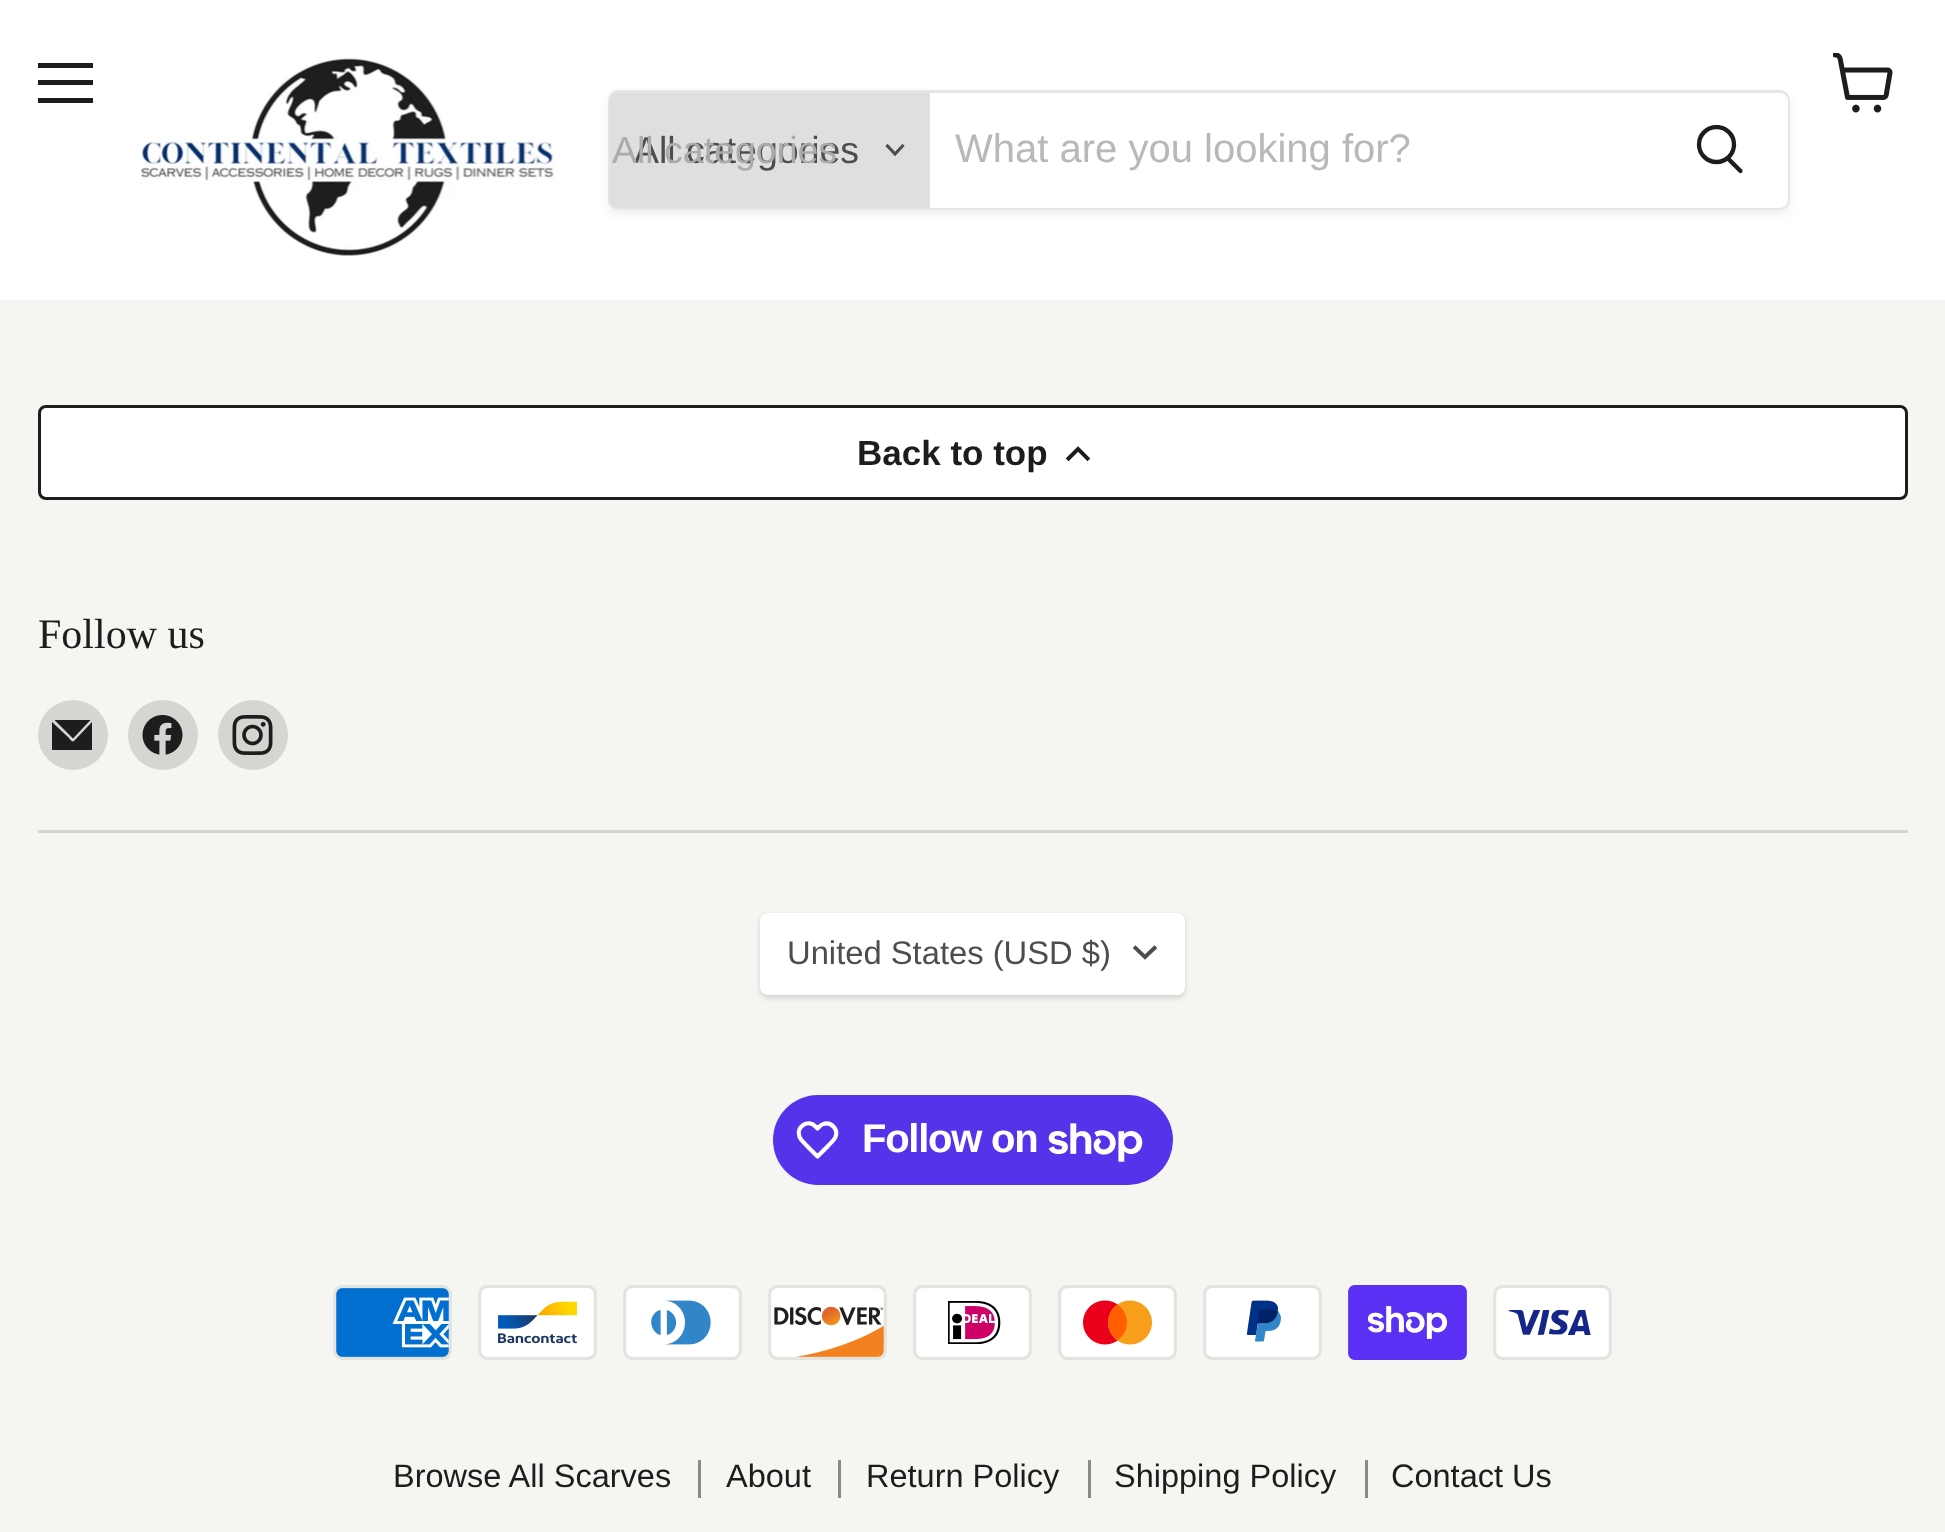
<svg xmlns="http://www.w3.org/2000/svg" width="1945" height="1532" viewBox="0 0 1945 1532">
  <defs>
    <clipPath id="clip1"><path d="M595 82H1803V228H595ZM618 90H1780C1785.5 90 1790 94.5 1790 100V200C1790 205.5 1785.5 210 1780 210H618C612.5 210 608 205.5 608 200V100C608 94.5 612.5 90 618 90Z" clip-rule="evenodd"/></clipPath>
    <filter id="blur1" x="-50%" y="-200%" width="200%" height="500%"><feGaussianBlur stdDeviation="4"/></filter>
    <clipPath id="clip2"><rect x="1695" y="125" width="50" height="53"/></clipPath>
    <filter id="blur2" x="-50%" y="-200%" width="200%" height="500%"><feGaussianBlur stdDeviation="2.5"/></filter>
  </defs>
  <rect width="100%" height="100%" fill="#f5f5f2"/>
  <rect x="0" y="0" width="1945" height="300" fill="#ffffff"/>
  <rect x="38" y="63" width="55" height="5" fill="#1d1d1d"/>
  <rect x="38" y="80" width="55" height="5" fill="#1d1d1d"/>
  <rect x="38" y="98" width="55" height="5" fill="#1d1d1d"/>
  <image x="1833" y="53" width="60" height="60" href="img1.png"/>
  <image x="141" y="58" width="416" height="198" href="img2.png"/>
  <g clip-path="url(#clip1)">
    <rect x="608" y="95" width="1182" height="120" rx="10" fill="#7b7b79" fill-opacity="0.11" filter="url(#blur1)"/>
  </g>
  <rect x="609.5" y="91.5" width="1179" height="117" rx="8.5" fill="none" stroke="#7b7b79" stroke-opacity="0.2" stroke-width="3"/>
  <path d="M618 93H930V208H618C613.5 208 610 204.5 610 200V101C610 96.5 613.5 93 618 93Z" fill="#dfdfdd"/>
  <text x="634" y="163" font-family="Arimo" font-size="37.5" fill="#4d4d4d">All categories</text>
  <text x="612" y="163" font-family="Liberation Sans" font-size="37.5" fill="#ababa9">All categories</text>
  <path d="M895 154L902.5 146M895 154L887.5 146" fill="none" stroke="#4d4d4d" stroke-width="3.1" stroke-linecap="square"/>
  <rect x="930" y="207" width="723" height="1" fill="#ffffff"/>
  <text x="955" y="162" font-family="Arimo" font-size="40" fill="#b8b8b8">What are you looking for?</text>
  <path d="M1654.5 94.5H1780C1783.5 94.5 1786.5 97.5 1786.5 101V200C1786.5 203.5 1783.5 206.5 1780 206.5H1654.5Z" fill="#ffffff" stroke="#ffffff" stroke-width="3"/>
  <path d="M1740.5 171L1728.5 159" fill="none" stroke="#1d1d1d" stroke-width="4.3" stroke-linecap="round"/>
  <g clip-path="url(#clip2)">
    <circle cx="1716.5" cy="144.5" r="17.5" fill="none" stroke="#1d1d1d" stroke-width="4.3"/>
  </g>
  <rect x="39.5" y="406.5" width="1867" height="92" rx="6.5" fill="#ffffff" stroke="#1d1d1d" stroke-width="3"/>
  <text x="857" y="465" font-family="Arimo" font-size="35" font-weight="bold" fill="#1d1d1d">Back to top</text>
  <path d="M1078 449L1068.5 458.5M1078 449L1087.5 458.5" fill="none" stroke="#1d1d1d" stroke-width="3.9" stroke-linecap="square"/>
  <rect x="38" y="830" width="1870" height="3" fill="#d5d5d2"/>
  <text x="38" y="648" font-family="Liberation Serif" font-size="42" fill="#1d1d1d">Follow us</text>
  <circle cx="73" cy="735" r="35" fill="#d5d5d2"/>
  <path d="M74 741C72 743 69 738 69 738L52 722V750H92V722Z" fill="#1d1d1d"/>
  <path d="M90.5 720H54.5L73 738.5Z" fill="#1d1d1d"/>
  <circle cx="163" cy="735" r="35" fill="#d5d5d2"/>
  <image x="142" y="715" width="41" height="40" href="img3.png"/>
  <circle cx="253" cy="735" r="35" fill="#d5d5d2"/>
  <image x="232" y="715" width="41" height="40" href="img4.png"/>
  <rect x="760" y="915" width="425" height="83" rx="8" fill="#000000" fill-opacity="0.15" filter="url(#blur2)"/>
  <rect x="761.5" y="914.5" width="422" height="79" rx="6.5" fill="#ffffff" stroke="#ffffff" stroke-width="3"/>
  <text x="787" y="964" font-family="Arimo" font-size="32.75" fill="#4d4d4d">United States (USD $)</text>
  <path d="M1145 957L1154.5 948M1145 957L1135.5 948" fill="none" stroke="#4d4d4d" stroke-width="3.9" stroke-linecap="square"/>
  <rect x="773" y="1095" width="400" height="90" rx="45" fill="#5433eb"/>
  <path d="M815.5 1126.5L817.5 1128.5C819.5 1126.5 821 1124.5 823.5 1124C831.5 1121.5 838.5 1129.5 835.5 1137C834 1140.5 830.5 1143 828 1146L817.5 1156.5L807 1146C804.5 1143 801 1140.5 799.5 1137C795.5 1127 808 1118.5 815.5 1126.5Z" fill="none" stroke="#ffffff" stroke-width="4.2" stroke-linejoin="round"/>
  <text x="862" y="1152" font-family="Liberation Sans" font-size="40" font-weight="bold" letter-spacing="-1.25" fill="#ffffff">Follow on</text>
  <image x="1048" y="1123" width="95" height="39" href="img5.png"/>
  <image x="333" y="1285" width="119" height="75" href="img6.png"/>
  <image x="478" y="1285" width="119" height="75" href="img7.png"/>
  <image x="623" y="1285" width="119" height="75" href="img8.png"/>
  <image x="768" y="1285" width="119" height="75" href="img9.png"/>
  <image x="913" y="1285" width="119" height="75" href="img10.png"/>
  <image x="1058" y="1285" width="119" height="75" href="img11.png"/>
  <image x="1203" y="1285" width="119" height="75" href="img12.png"/>
  <image x="1348" y="1285" width="119" height="75" href="img13.png"/>
  <image x="1493" y="1285" width="119" height="75" href="img14.png"/>
  <rect x="698" y="1460" width="3" height="38" fill="#898988"/>
  <text x="393" y="1487" font-family="Arimo" font-size="32.5" fill="#1d1d1d">Browse All Scarves</text>
  <rect x="838" y="1460" width="3" height="38" fill="#898988"/>
  <text x="726" y="1487" font-family="Arimo" font-size="32.5" fill="#1d1d1d">About</text>
  <rect x="1088" y="1460" width="3" height="38" fill="#898988"/>
  <text x="866" y="1487" font-family="Arimo" font-size="32.5" fill="#1d1d1d">Return Policy</text>
  <rect x="1365" y="1460" width="3" height="38" fill="#898988"/>
  <text x="1114" y="1487" font-family="Arimo" font-size="32.5" fill="#1d1d1d">Shipping Policy</text>
  <text x="1391" y="1487" font-family="Arimo" font-size="32.5" fill="#1d1d1d">Contact Us</text>
</svg>
